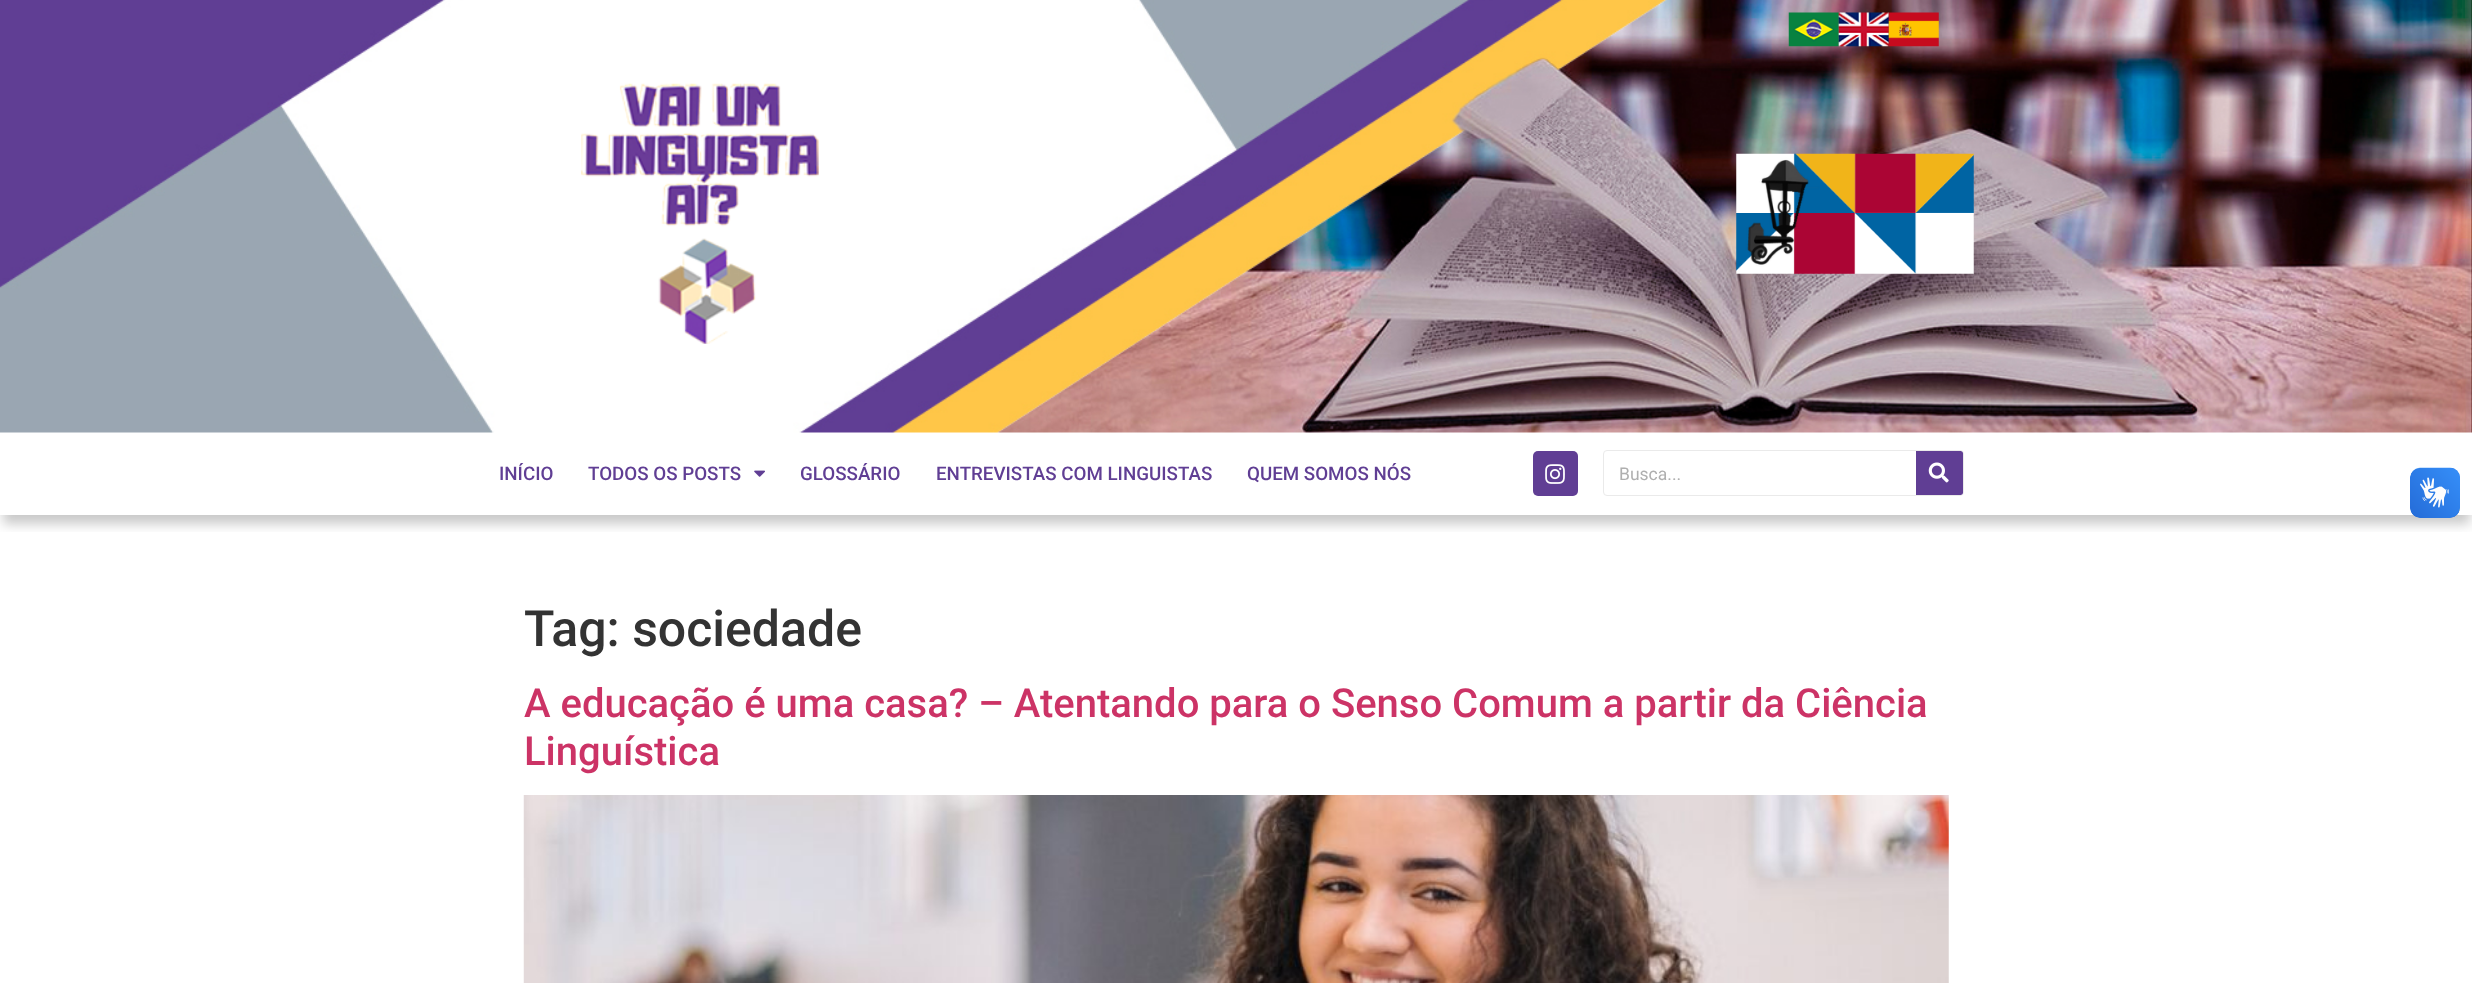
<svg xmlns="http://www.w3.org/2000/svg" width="2472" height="983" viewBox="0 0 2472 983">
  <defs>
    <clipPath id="clip1"><rect x="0" y="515" width="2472" height="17"/></clipPath>
    <filter id="blur1" x="-50%" y="-200%" width="200%" height="500%"><feGaussianBlur stdDeviation="6"/></filter>
  </defs>
  <rect width="100%" height="100%" fill="#ffffff"/>
  <image x="0" y="0" width="2472" height="433" href="img1.png"/>
  <image x="581" y="83" width="238" height="261" href="img2.png"/>
  <image x="1736" y="153" width="238" height="121" href="img3.png"/>
  <image x="1788" y="12" width="51" height="35" href="img4.png"/>
  <image x="1838" y="12" width="51" height="35" href="img5.png"/>
  <image x="1888" y="12" width="51" height="35" href="img6.png"/>
  <g clip-path="url(#clip1)">
    <rect x="3" y="446" width="2467" height="78" fill="#000000" fill-opacity="0.21" filter="url(#blur1)"/>
  </g>
  <text x="499" y="480" font-family="Roboto" font-size="18.75" font-weight="500" fill="#603e94">INÍCIO</text>
  <text x="588" y="480" font-family="Roboto" font-size="18.75" font-weight="500" fill="#603e94">TODOS OS POSTS</text>
  <image x="754" y="470" width="11" height="7" href="img7.png"/>
  <text x="800" y="480" font-family="Roboto" font-size="18.75" font-weight="500" fill="#603e94">GLOSSÁRIO</text>
  <text x="936" y="480" font-family="Roboto" font-size="18.75" font-weight="500" fill="#603e94">ENTREVISTAS COM LINGUISTAS</text>
  <text x="1247" y="480" font-family="Roboto" font-size="18.75" font-weight="500" fill="#603e94">QUEM SOMOS NÓS</text>
  <rect x="1533" y="451" width="45" height="45" rx="5" fill="#603e94"/>
  <image x="1545" y="464" width="20" height="20" href="img8.png"/>
  <rect x="1603.5" y="450.5" width="360" height="45" rx="3.5" fill="none" stroke="#eaeaea"/>
  <text x="1619" y="480" font-family="Roboto" font-size="17.5" fill="#afafaf">Busca...</text>
  <path d="M1916 451H1960.5C1962 451 1963 452 1963 453.5V492.5C1963 494 1962 495 1960.5 495H1916Z" fill="#603e94"/>
  <image x="1928" y="462" width="21" height="21" href="img9.png"/>
  <image x="2410" y="467" width="50" height="51" href="img10.png"/>
  <image x="2410" y="468" width="50" height="50" href="img11.png"/>
  <text x="524" y="646" font-family="Roboto" font-size="50" font-weight="500" fill="#333333">Tag: sociedade</text>
  <text x="524" y="717" font-family="Roboto" font-size="40" font-weight="500" fill="#cc3366">A educação é uma casa? – Atentando para o Senso Comum a partir da Ciência</text>
  <text x="524" y="765" font-family="Roboto" font-size="40" font-weight="500" fill="#cc3366">Linguística</text>
  <image x="523" y="795" width="1426" height="188" href="img12.png"/>
</svg>
